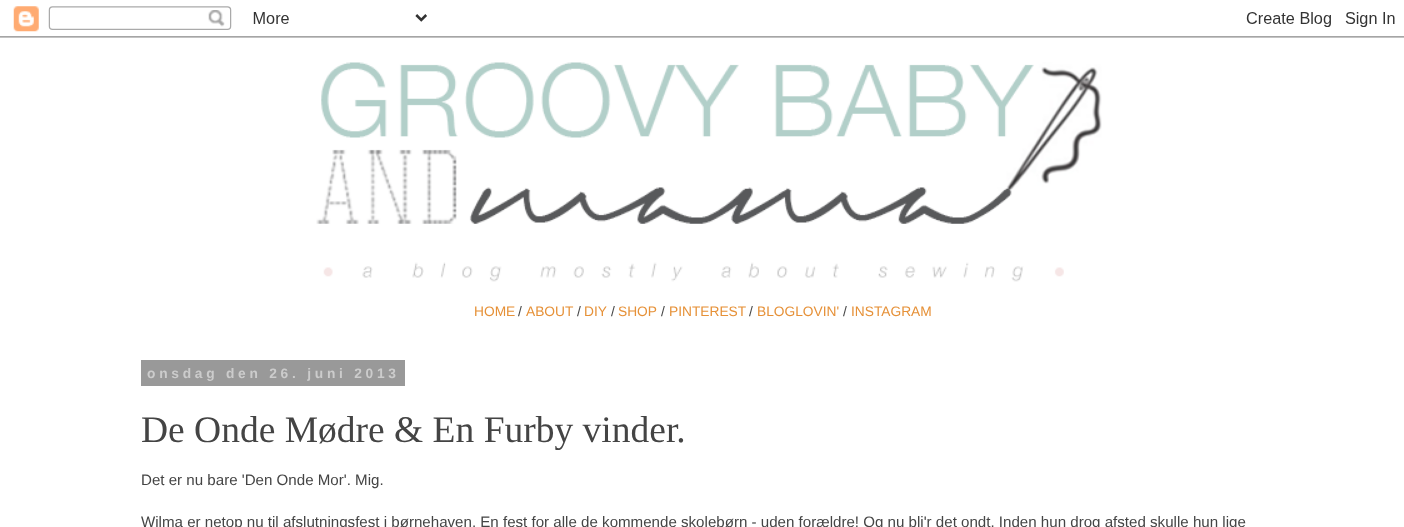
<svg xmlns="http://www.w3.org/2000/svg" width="1404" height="527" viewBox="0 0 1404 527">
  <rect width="100%" height="100%" fill="#ffffff"/>
  <image x="0" y="6" width="1404" height="32" href="img1.png"/>
  <image x="316" y="62" width="786" height="220" href="img2.png"/>
  <text x="474" y="316" font-family="Liberation Sans" font-size="13.75" fill="#e69138">HOME</text>
  <text x="518" y="316" font-family="Liberation Sans" font-size="13.75" fill="#444444">/</text>
  <text x="526" y="316" font-family="Liberation Sans" font-size="13.75" fill="#e69138">ABOUT</text>
  <text x="577" y="316" font-family="Liberation Sans" font-size="13.75" fill="#444444">/</text>
  <text x="584" y="316" font-family="Liberation Sans" font-size="13.75" fill="#e69138">DIY</text>
  <text x="611" y="316" font-family="Liberation Sans" font-size="13.75" fill="#444444">/</text>
  <text x="618" y="316" font-family="Liberation Sans" font-size="13.75" fill="#e69138">SHOP</text>
  <text x="661" y="316" font-family="Liberation Sans" font-size="13.75" fill="#444444">/</text>
  <text x="669" y="316" font-family="Liberation Sans" font-size="13.75" fill="#e69138">PINTEREST</text>
  <text x="749" y="316" font-family="Liberation Sans" font-size="13.75" fill="#444444">/</text>
  <text x="757" y="316" font-family="Liberation Sans" font-size="13.75" fill="#e69138">BLOGLOVIN'</text>
  <text x="843" y="316" font-family="Liberation Sans" font-size="13.75" fill="#444444">/</text>
  <text x="851" y="316" font-family="Liberation Sans" font-size="13.75" fill="#e69138">INSTAGRAM</text>
  <rect x="141" y="360" width="264" height="26" fill="#999999"/>
  <text x="147" y="378" font-family="Liberation Sans" font-size="13.75" font-weight="bold" letter-spacing="3.75" fill="#cccccc">onsdag den 26. juni 2013</text>
  <text x="141" y="442" font-family="Liberation Serif" font-size="37.5" fill="#444444">De Onde Mødre &amp; En Furby vinder.</text>
  <text x="141" y="485" font-family="Liberation Sans" font-size="15.12" fill="#444444">Det er nu bare 'Den Onde Mor'. Mig.</text>
  <text x="141" y="527" font-family="Liberation Sans" font-size="15.12" fill="#444444">Wilma er netop nu til afslutningsfest i børnehaven. En fest for alle de kommende skolebørn - uden forældre! Og nu bli'r det ondt. Inden hun drog afsted skulle hun lige</text>
</svg>
